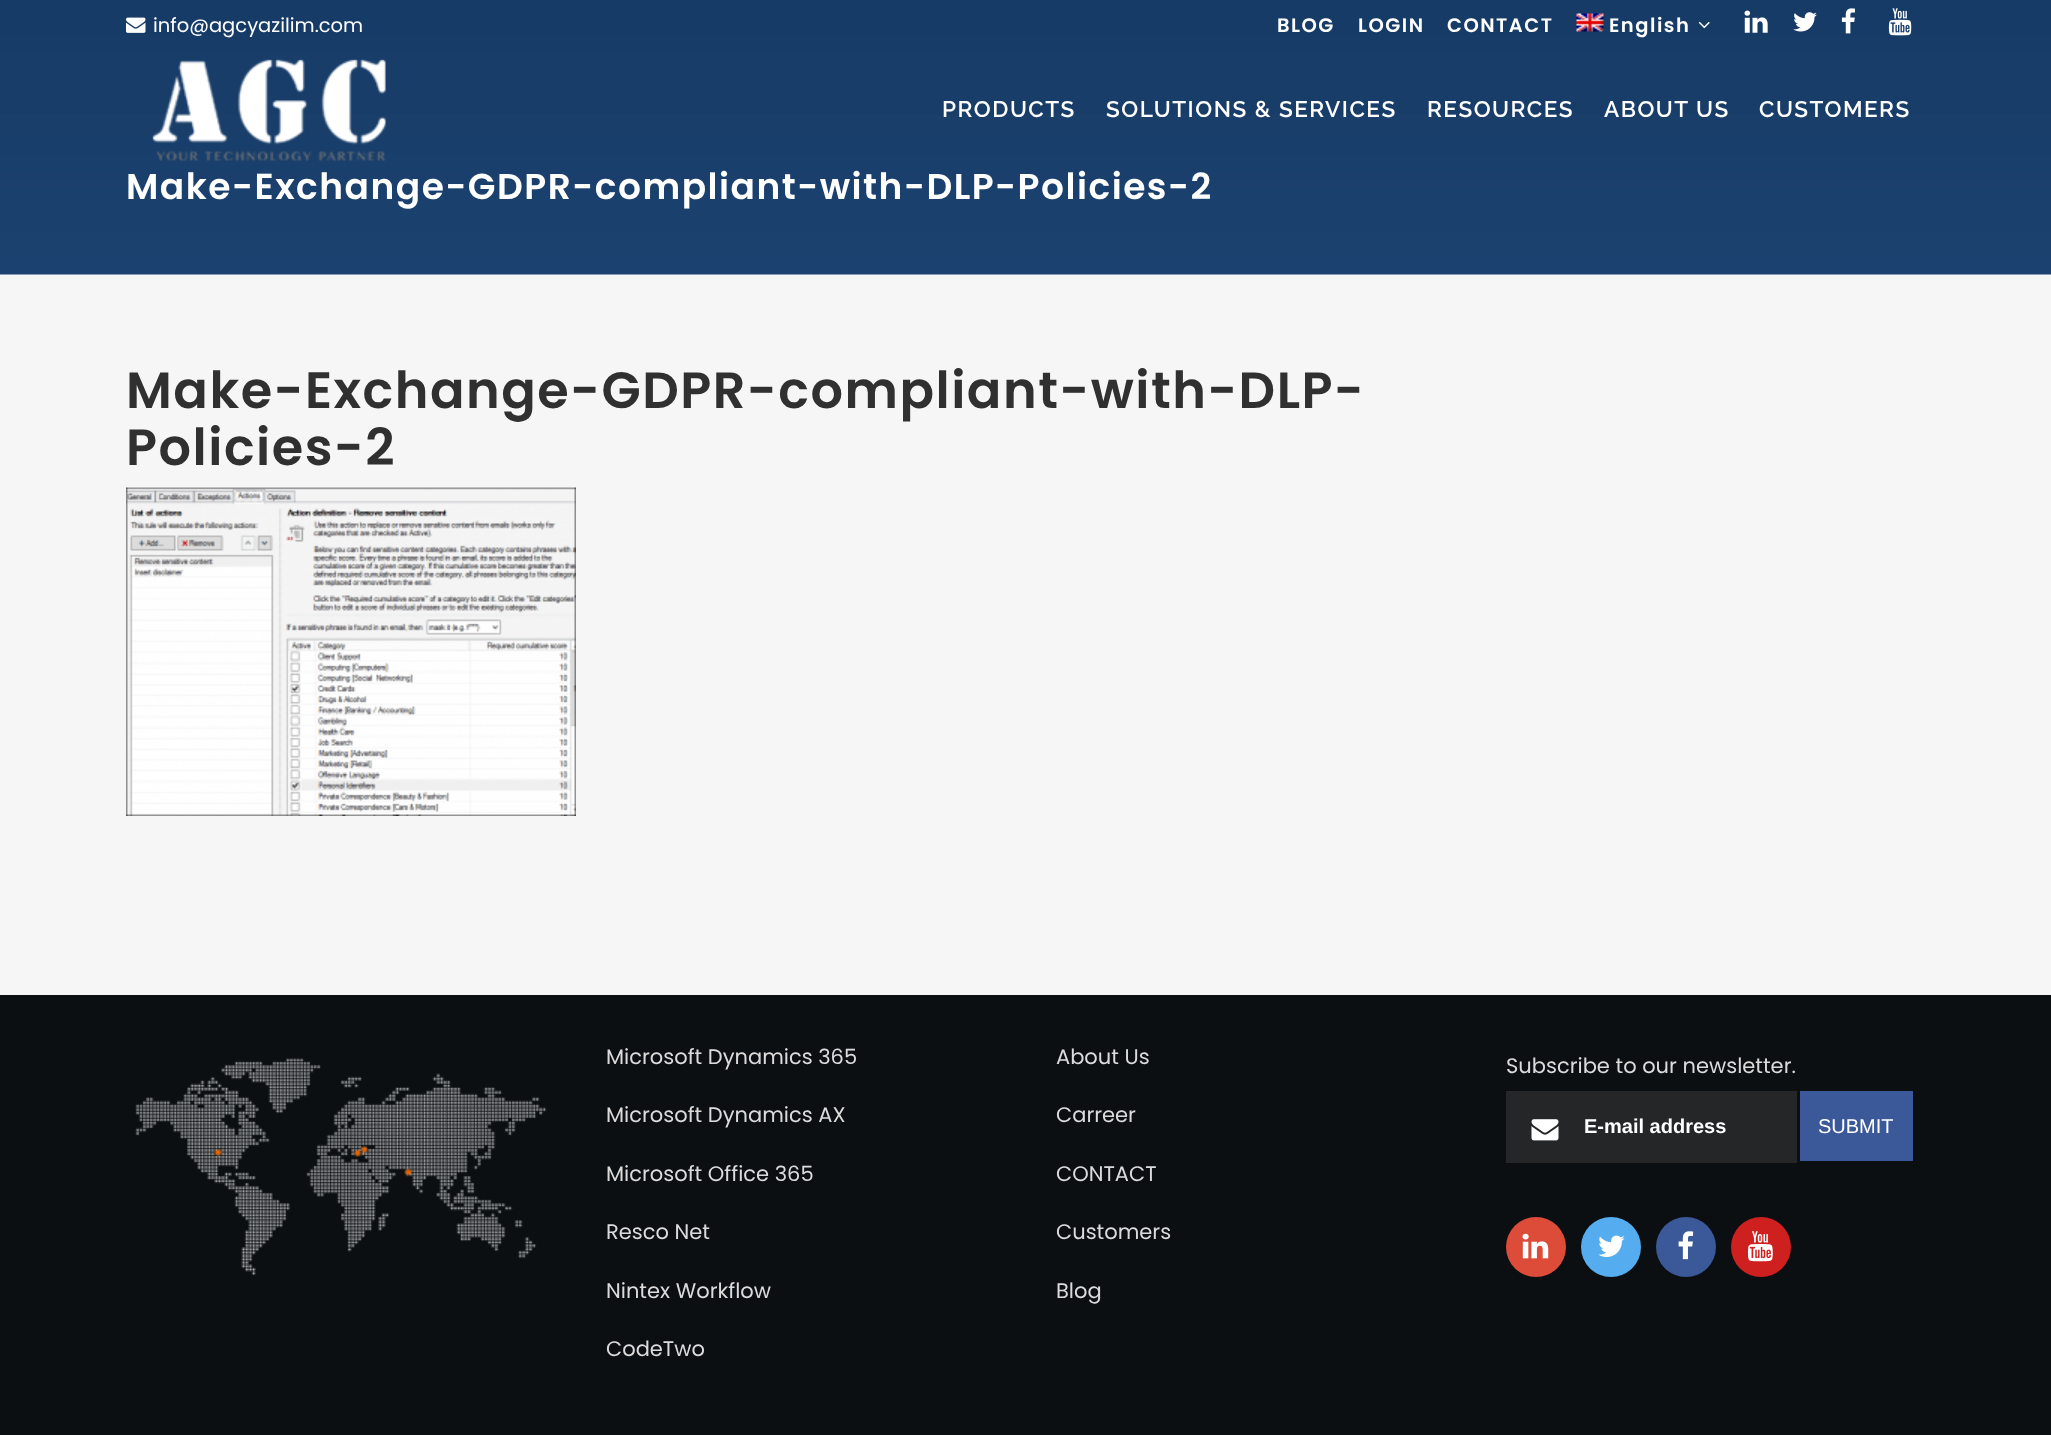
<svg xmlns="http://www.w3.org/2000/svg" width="2051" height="1435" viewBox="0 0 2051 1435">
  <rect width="100%" height="100%" fill="#f6f6f6"/>
  <image x="0" y="0" width="2051" height="275" href="img9.png"/>
  <image x="126" y="17" width="20" height="16" href="img1.png"/>
  <text x="153" y="32" font-family="Poppins" font-size="19.5" fill="#ffffff">info@agcyazilim.com</text>
  <text x="1277" y="32" font-family="Poppins" font-size="19.5" font-weight="600" letter-spacing="1.5" fill="#ffffff">BLOG</text>
  <text x="1358" y="32" font-family="Poppins" font-size="19.5" font-weight="600" letter-spacing="1.5" fill="#ffffff">LOGIN</text>
  <text x="1447" y="32" font-family="Poppins" font-size="19.5" font-weight="600" letter-spacing="1.5" fill="#ffffff">CONTACT</text>
  <image x="1576" y="13" width="28" height="19" href="img2.png"/>
  <text x="1609" y="32" font-family="Poppins" font-size="19.5" font-weight="600" letter-spacing="1.5" fill="#ffffff">English</text>
  <image x="1698" y="21" width="12" height="8" href="img3.png"/>
  <image x="1744" y="10" width="24" height="23" href="img4.png"/>
  <image x="1793" y="12" width="24" height="20" href="img5.png"/>
  <image x="1841" y="8" width="14" height="26" href="img6.png"/>
  <image x="1888" y="8" width="24" height="28" href="img7.png"/>
  <image x="152" y="59" width="234" height="102" href="img8.png"/>
  <text x="942" y="117" font-family="Raleway" font-size="22.5" font-weight="600" letter-spacing="1.5" fill="#ffffff">PRODUCTS</text>
  <text x="1106" y="117" font-family="Raleway" font-size="22.5" font-weight="600" letter-spacing="1.5" fill="#ffffff">SOLUTIONS &amp; SERVICES</text>
  <text x="1427" y="117" font-family="Raleway" font-size="22.5" font-weight="600" letter-spacing="1.5" fill="#ffffff">RESOURCES</text>
  <text x="1604" y="117" font-family="Raleway" font-size="22.5" font-weight="600" letter-spacing="1.5" fill="#ffffff">ABOUT US</text>
  <text x="1759" y="117" font-family="Raleway" font-size="22.5" font-weight="600" letter-spacing="1.5" fill="#ffffff">CUSTOMERS</text>
  <text x="126" y="199" font-family="Poppins" font-size="36" font-weight="600" letter-spacing="1.5" fill="#ffffff">Make-Exchange-GDPR-compliant-with-DLP-Policies-2</text>
  <text x="126" y="408" font-family="Poppins" font-size="51" font-weight="600" letter-spacing="1.5" fill="#303030">Make-Exchange-GDPR-compliant-with-DLP-</text>
  <text x="126" y="465" font-family="Poppins" font-size="51" font-weight="600" letter-spacing="1.5" fill="#303030">Policies-2</text>
  <image x="126" y="487" width="450" height="329" href="img10.png"/>
  <rect x="0" y="995" width="2051" height="440" fill="#0b0f12"/>
  <image x="135" y="1058" width="412" height="218" href="img11.png"/>
  <text x="606" y="1064" font-family="Poppins" font-size="21" fill="#dbdbdb">Microsoft Dynamics 365</text>
  <text x="606" y="1122" font-family="Poppins" font-size="21" fill="#dbdbdb">Microsoft Dynamics AX</text>
  <text x="606" y="1181" font-family="Poppins" font-size="21" fill="#dbdbdb">Microsoft Office 365</text>
  <text x="606" y="1239" font-family="Poppins" font-size="21" fill="#dbdbdb">Resco Net</text>
  <text x="606" y="1298" font-family="Poppins" font-size="21" fill="#dbdbdb">Nintex Workflow</text>
  <text x="606" y="1356" font-family="Poppins" font-size="21" fill="#dbdbdb">CodeTwo</text>
  <text x="1056" y="1064" font-family="Poppins" font-size="21" fill="#dbdbdb">About Us</text>
  <text x="1056" y="1122" font-family="Poppins" font-size="21" fill="#dbdbdb">Carreer</text>
  <text x="1056" y="1181" font-family="Poppins" font-size="21" fill="#dbdbdb">CONTACT</text>
  <text x="1056" y="1239" font-family="Poppins" font-size="21" fill="#dbdbdb">Customers</text>
  <text x="1056" y="1298" font-family="Poppins" font-size="21" fill="#dbdbdb">Blog</text>
  <text x="1506" y="1073" font-family="Poppins" font-size="21" fill="#dbdbdb">Subscribe to our newsletter.</text>
  <rect x="1506" y="1091" width="291" height="72" fill="#252627"/>
  <image x="1531" y="1119" width="28" height="22" href="img12.png"/>
  <text x="1584" y="1133" font-family="Liberation Sans" font-size="20" font-weight="bold" fill="#ffffff">E-mail address</text>
  <rect x="1800" y="1091" width="113" height="70" fill="#3b5998"/>
  <text x="1818" y="1133" font-family="Liberation Sans" font-size="20" fill="#ffffff">SUBMIT</text>
  <circle cx="1536" cy="1247" r="30" fill="#dd4b39"/>
  <image x="1522" y="1233" width="27" height="26" href="img13.png"/>
  <circle cx="1611" cy="1247" r="30" fill="#55acee"/>
  <image x="1598" y="1235" width="27" height="22" href="img14.png"/>
  <circle cx="1686" cy="1247" r="30" fill="#3b5998"/>
  <image x="1678" y="1231" width="16" height="29" href="img15.png"/>
  <circle cx="1761" cy="1247" r="30" fill="#cd201f"/>
  <image x="1747" y="1231" width="26" height="31" href="img16.png"/>
</svg>
